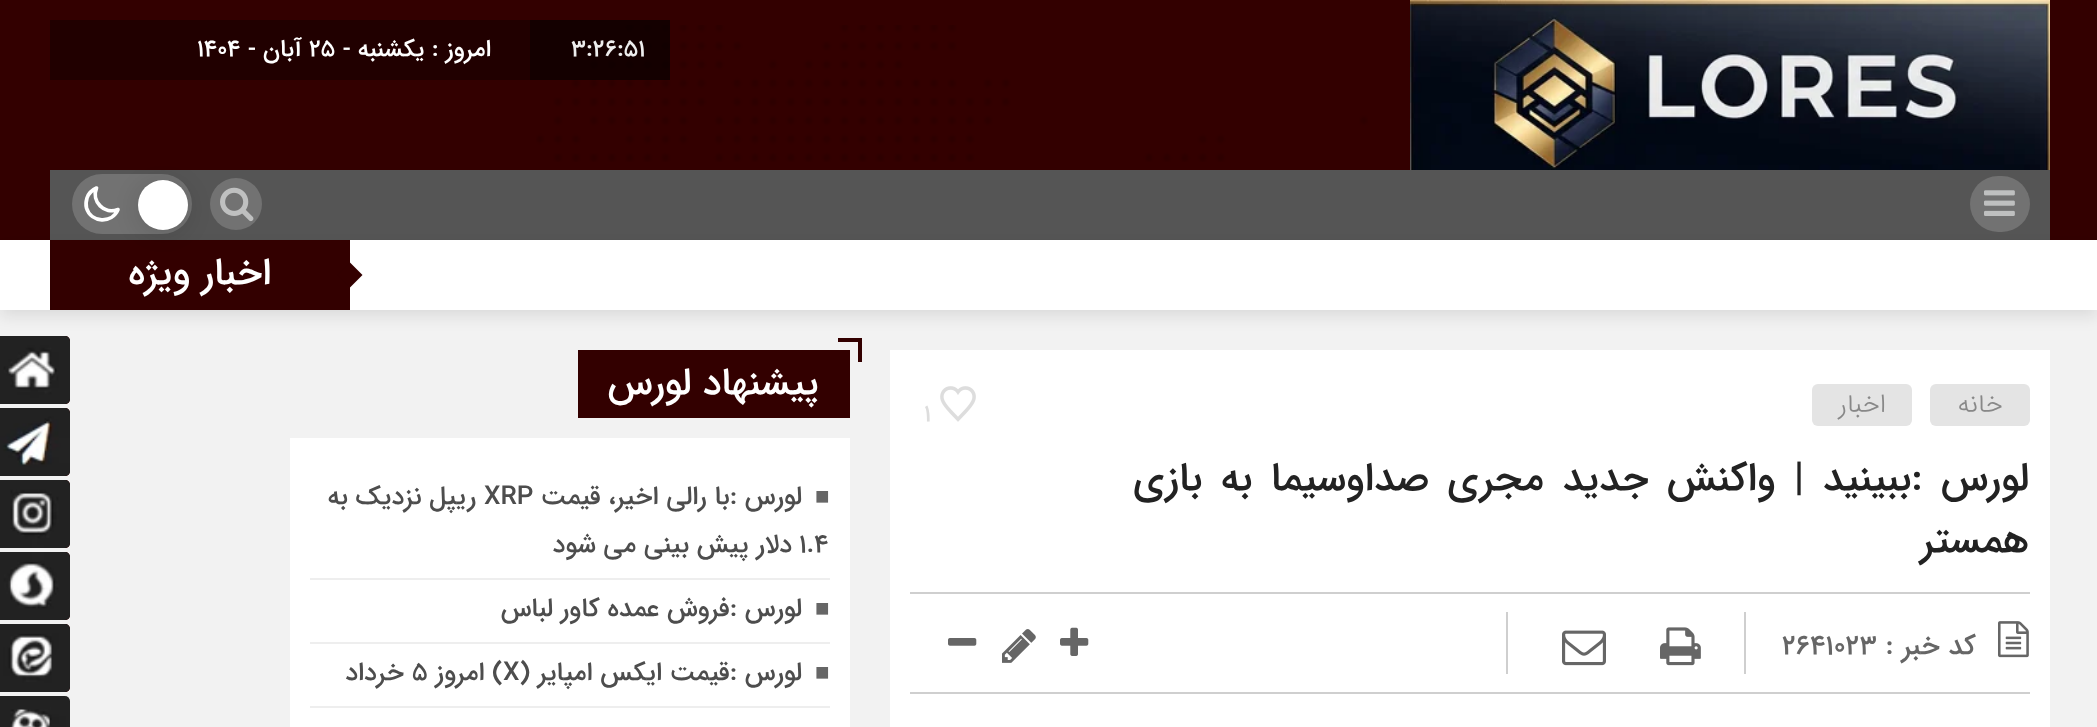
<svg xmlns="http://www.w3.org/2000/svg" width="2097" height="727" viewBox="0 0 2097 727">
  <defs>
    <filter id="blur1" x="-50%" y="-200%" width="200%" height="500%"><feGaussianBlur stdDeviation="8"/></filter>
    <filter id="blur2" x="-50%" y="-200%" width="200%" height="500%"><feGaussianBlur stdDeviation="15"/></filter>
  </defs>
  <rect width="100%" height="100%" fill="#f2f2f2"/>
  <rect x="0" y="0" width="2097" height="240" fill="#330000"/>
  <image x="536" y="25" width="832" height="137" href="img1.png"/>
  <image x="1410" y="0" width="640" height="170" href="img2.png"/>
  <rect x="530" y="20" width="140" height="60" fill="#000000" fill-opacity="0.6"/>
  <text x="571" y="56" font-family="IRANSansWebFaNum" font-size="24" font-weight="500" fill="#eeeeee">3:26:51</text>
  <rect x="50" y="20" width="480" height="60" fill="#210000"/>
  <text x="491" y="56" font-family="IRANSansWebFaNum" font-size="24" font-weight="500" direction="rtl" fill="#ffffff">امروز : یکشنبه -</text>
  <text x="309" y="56" font-family="IRANSansWebFaNum" font-size="24" font-weight="500" fill="#ffffff">۲۵</text>
  <text x="302" y="56" font-family="IRANSansWebFaNum" font-size="24" font-weight="500" direction="rtl" fill="#ffffff">آبان -</text>
  <text x="197" y="56" font-family="IRANSansWebFaNum" font-size="24" font-weight="500" fill="#ffffff">۱۴۰۴</text>
  <rect x="50" y="170" width="2000" height="70" fill="#555555"/>
  <rect x="1970" y="176" width="60" height="56" rx="28" fill="#727272"/>
  <image x="1984" y="190" width="31" height="26" href="img3.png"/>
  <circle cx="236" cy="204" r="26" fill="#727272"/>
  <image x="220" y="187" width="34" height="35" href="img4.png"/>
  <rect x="0" y="246" width="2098" height="70" fill="#000000" fill-opacity="0.1" filter="url(#blur1)"/>
  <rect x="72" y="174" width="120" height="60" rx="30" fill="#727272"/>
  <path d="M118 209.5C104.5 215 91 201.5 96.5 188C92 190 88.5 193.5 87 198C86 201.5 85.5 204.5 86.5 208C91 223 112 224 118 209.5Z" fill="none" stroke="#ffffff" stroke-width="3.7" stroke-linecap="round" stroke-linejoin="round"/>
  <rect x="0" y="240" width="2097" height="70" fill="#ffffff"/>
  <rect x="52" y="240" width="298" height="70" fill="#330000"/>
  <rect x="138" y="184" width="50" height="50" rx="25" fill="#000000" fill-opacity="0.15" filter="url(#blur2)"/>
  <circle cx="163" cy="205" r="25" fill="#ffffff"/>
  <rect x="50" y="240" width="2" height="70" fill="#310000"/>
  <path d="M350 262.5L362.5 275L350 287.5L337.5 275Z" fill="#330000"/>
  <text x="271" y="284" font-family="IRANSansWebFaNum" font-size="38" font-weight="500" direction="rtl" fill="#ffffff">اخبار ویژه</text>
  <rect x="890" y="350" width="1160" height="377" fill="#ffffff"/>
  <rect x="1930" y="384" width="100" height="42" rx="6" fill="#e4e4e4"/>
  <text x="2003" y="412" font-family="IRANSansWebFaNum" font-size="26" font-weight="300" direction="rtl" fill="#888888">خانه</text>
  <rect x="1812" y="384" width="100" height="42" rx="6" fill="#e4e4e4"/>
  <text x="1886" y="412" font-family="IRANSansWebFaNum" font-size="26" font-weight="300" direction="rtl" fill="#888888">اخبار</text>
  <image x="940" y="386" width="36" height="36" href="img5.png"/>
  <text x="924" y="421" font-family="IRANSansWebFaNum" font-size="24" font-weight="500" fill="#dddddd">1</text>
  <text x="2029" y="490" word-spacing="6.5" font-family="IRANSansWebFaNum" font-size="40" font-weight="500" direction="rtl" fill="#222222">لورس :ببینید | واکنش جدید مجری صداوسیما به بازی</text>
  <text x="2029" y="552" font-family="IRANSansWebFaNum" font-size="40" font-weight="500" direction="rtl" fill="#222222">همستر</text>
  <rect x="910" y="592" width="1120" height="2" fill="#cfcfcf"/>
  <rect x="910" y="692" width="1120" height="2" fill="#cfcfcf"/>
  <image x="1998" y="621" width="31" height="37" href="img6.png"/>
  <text x="1976" y="654" font-family="IRANSansWebFaNum" font-size="28" font-weight="500" direction="rtl" fill="#666666">کد خبر :</text>
  <text x="1782" y="654" font-family="IRANSansWebFaNum" font-size="28" font-weight="500" fill="#666666">2641023</text>
  <rect x="1744" y="612" width="2" height="62" fill="#cfcfcf"/>
  <image x="1660" y="627" width="41" height="39" href="img7.png"/>
  <image x="1562" y="630" width="44" height="36" href="img8.png"/>
  <rect x="1506" y="612" width="2" height="62" fill="#cfcfcf"/>
  <image x="1060" y="627" width="29" height="29" href="img9.png"/>
  <image x="1002" y="629" width="34" height="34" href="img10.png"/>
  <image x="948" y="638" width="29" height="8" href="img11.png"/>
  <rect x="578" y="350" width="272" height="68" fill="#330000"/>
  <rect x="838" y="338" width="24" height="4" fill="#330000"/>
  <rect x="858" y="338" width="4" height="24" fill="#330000"/>
  <text x="819" y="394" font-family="IRANSansWebFaNum" font-size="38" font-weight="500" direction="rtl" fill="#ffffff">پیشنهاد لورس</text>
  <rect x="290" y="438" width="560" height="289" fill="#ffffff"/>
  <rect x="310" y="578" width="520" height="2" fill="#eeeeee"/>
  <text x="815" y="504" font-family="Liberation Sans" font-size="24" fill="#666666">■</text>
  <text x="802" y="504" font-family="IRANSansWebFaNum" font-size="26" font-weight="500" direction="rtl" fill="#4d4d4d">لورس :با رالی اخیر، قیمت</text>
  <text x="484" y="504" font-family="IRANSansWebFaNum" font-size="26" font-weight="500" fill="#4d4d4d">XRP</text>
  <text x="476" y="504" font-family="IRANSansWebFaNum" font-size="26" font-weight="500" direction="rtl" fill="#4d4d4d">ریپل نزدیک به</text>
  <text x="799" y="552" font-family="IRANSansWebFaNum" font-size="26" font-weight="500" fill="#4d4d4d">۱.۴</text>
  <text x="792" y="552" font-family="IRANSansWebFaNum" font-size="26" font-weight="500" direction="rtl" fill="#4d4d4d">دلار پیش بینی می شود</text>
  <rect x="310" y="642" width="520" height="2" fill="#eeeeee"/>
  <text x="815" y="616" font-family="Liberation Sans" font-size="24" fill="#666666">■</text>
  <text x="802" y="616" font-family="IRANSansWebFaNum" font-size="26" font-weight="500" direction="rtl" fill="#4d4d4d">لورس :فروش عمده کاور لباس</text>
  <rect x="310" y="706" width="520" height="2" fill="#eeeeee"/>
  <text x="815" y="680" font-family="Liberation Sans" font-size="24" fill="#666666">■</text>
  <text x="802" y="680" font-family="IRANSansWebFaNum" font-size="26" font-weight="500" direction="rtl" fill="#4d4d4d">لورس :قیمت ایکس امپایر (</text>
  <text x="503" y="680" font-family="IRANSansWebFaNum" font-size="26" font-weight="500" fill="#4d4d4d">X</text>
  <text x="503" y="680" font-family="IRANSansWebFaNum" font-size="26" font-weight="500" direction="rtl" fill="#4d4d4d">) امروز</text>
  <text x="412" y="680" font-family="IRANSansWebFaNum" font-size="26" font-weight="500" fill="#4d4d4d">۵</text>
  <text x="404" y="680" font-family="IRANSansWebFaNum" font-size="26" font-weight="500" direction="rtl" fill="#4d4d4d">خرداد</text>
  <path d="M-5 336H65C68 336 70 338 70 341V399C70 402 68 404 65 404H-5Z" fill="#330000"/>
  <image x="0" y="336" width="70" height="68" href="img12.png"/>
  <path d="M-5 408H65C68 408 70 410 70 413V471C70 474 68 476 65 476H-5Z" fill="#330000"/>
  <image x="0" y="408" width="70" height="68" href="img13.png"/>
  <path d="M-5 480H65C68 480 70 482 70 485V543C70 546 68 548 65 548H-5Z" fill="#330000"/>
  <image x="0" y="480" width="70" height="68" href="img14.png"/>
  <path d="M-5 552H65C68 552 70 554 70 557V615C70 618 68 620 65 620H-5Z" fill="#330000"/>
  <image x="0" y="552" width="70" height="68" href="img15.png"/>
  <path d="M-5 624H65C68 624 70 626 70 629V687C70 690 68 692 65 692H-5Z" fill="#330000"/>
  <image x="0" y="624" width="70" height="68" href="img16.png"/>
  <image x="0" y="696" width="70" height="31" href="img17.png"/>
</svg>
